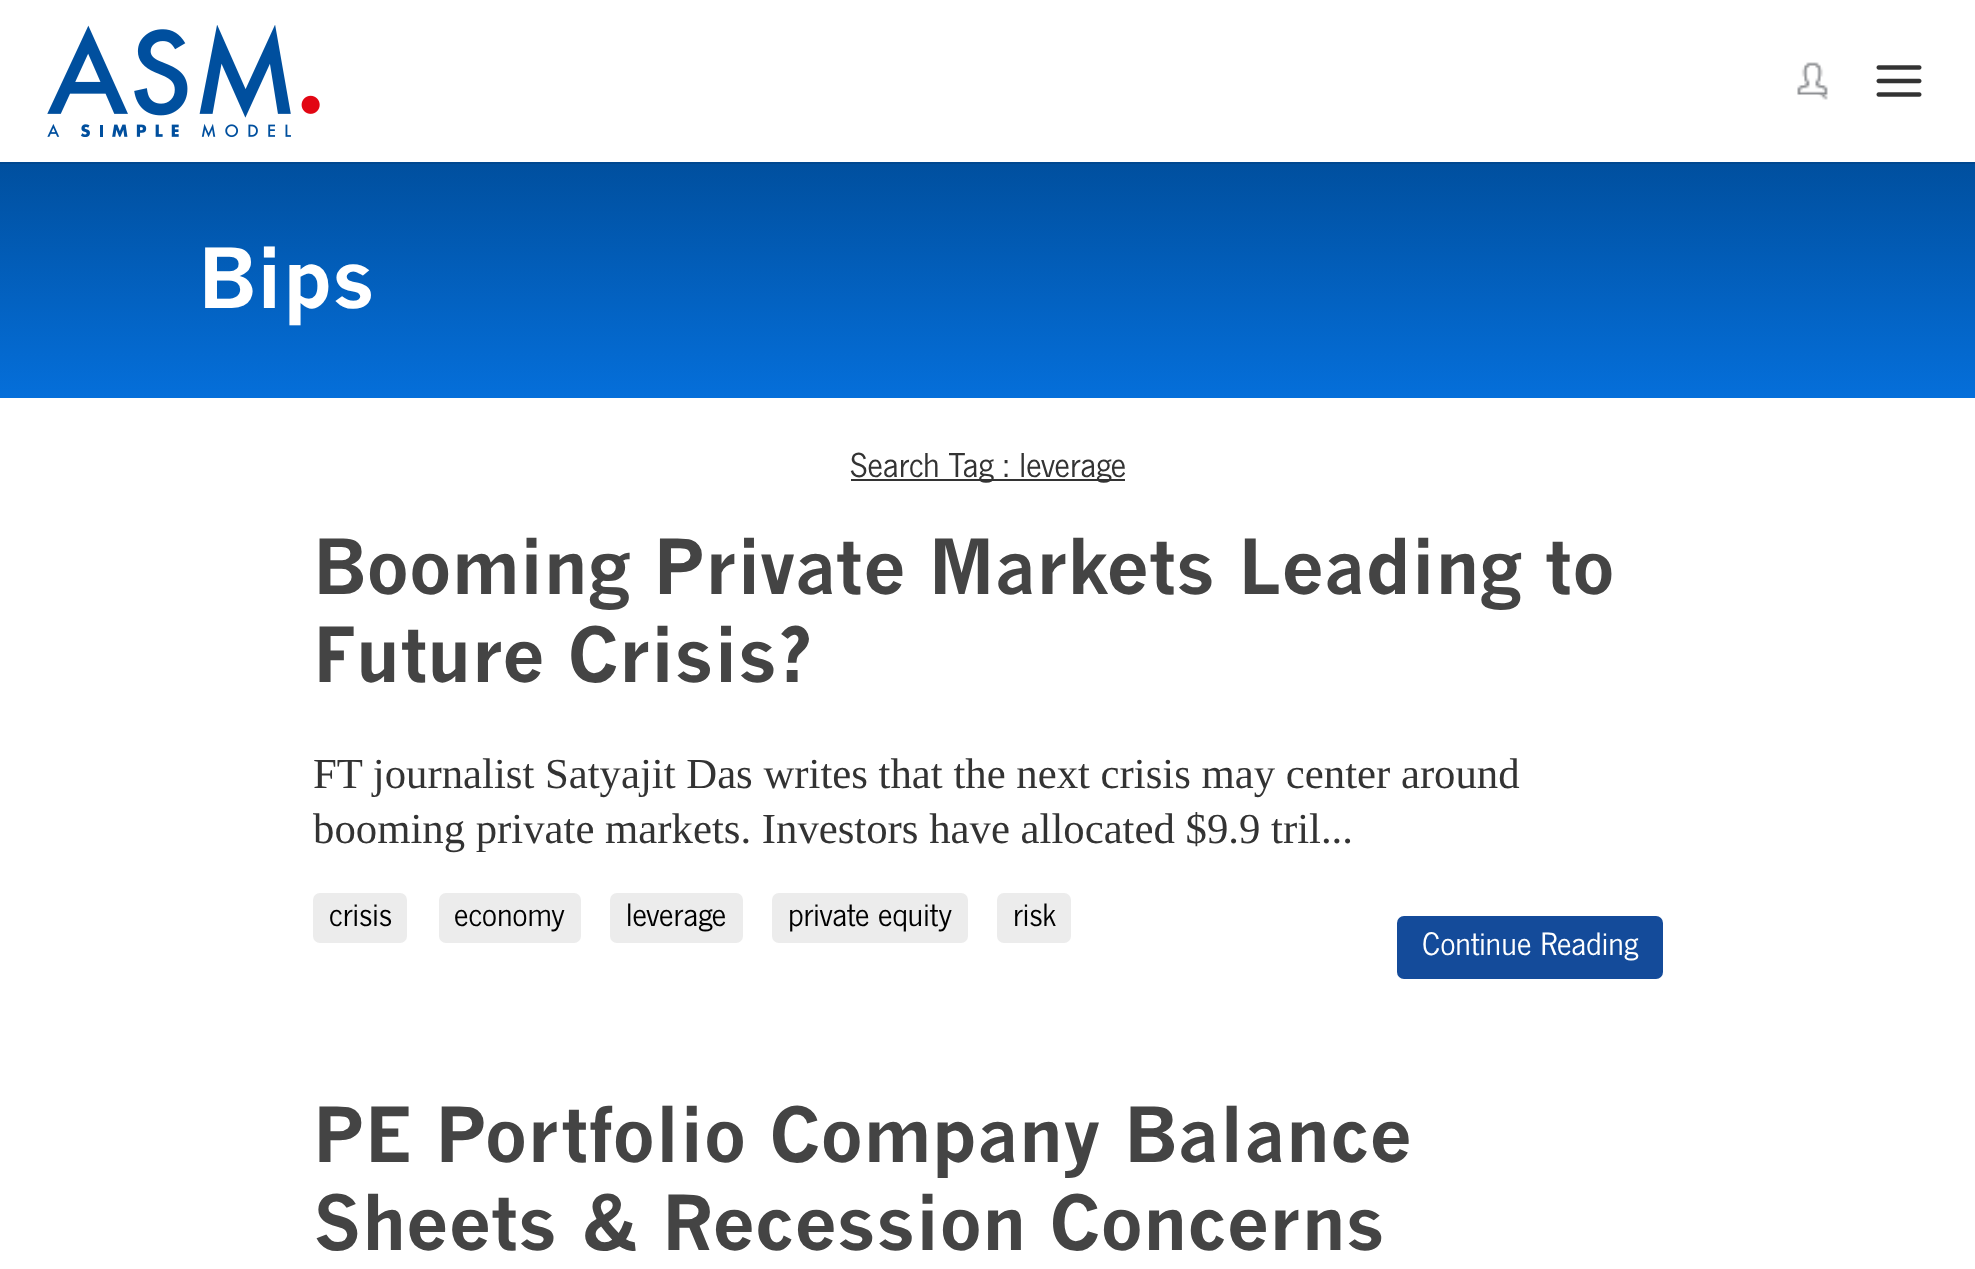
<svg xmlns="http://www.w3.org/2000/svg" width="1975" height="1269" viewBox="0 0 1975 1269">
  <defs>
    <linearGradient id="g1" gradientUnits="userSpaceOnUse" x1="988" y1="160" x2="988" y2="398"><stop offset="0" stop-color="#004f9e"/><stop offset="1" stop-color="#056fda"/></linearGradient>
  </defs>
  <rect width="100%" height="100%" fill="#ffffff"/>
  <path d="M0 162V164H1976V2V162Z" fill="#00478f"/>
  <image x="47" y="25" width="273" height="112" href="img1.png"/>
  <image x="1797" y="69" width="31" height="31" href="img4.png"/>
  <image x="1797" y="62" width="31" height="33" href="img2.png"/>
  <image x="1876" y="65" width="46" height="32" href="img3.png"/>
  <rect x="0" y="164" width="1975" height="234" fill="url(#g1)"/>
  <text x="198" y="308" font-family="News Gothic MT" font-size="81" font-weight="bold" fill="#ffffff">Bips</text>
  <rect x="851" y="479" width="274" height="2" fill="#333333"/>
  <text x="850" y="477" font-family="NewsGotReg" font-size="36" fill="#333333">Search Tag : leverage</text>
  <text x="313" y="594" font-family="News Gothic MT" font-size="74.25" font-weight="bold" fill="#444444">Booming Private Markets Leading to</text>
  <text x="313" y="682" font-family="News Gothic MT" font-size="74.25" font-weight="bold" fill="#444444">Future Crisis?</text>
  <text x="313" y="788" font-family="Liberation Serif" font-size="42.75" fill="#333333">FT journalist Satyajit Das writes that the next crisis may center around</text>
  <text x="313" y="843" font-family="Liberation Serif" font-size="42.75" fill="#333333">booming private markets. Investors have allocated $9.9 tril...</text>
  <rect x="313" y="893" width="94" height="50" rx="7" fill="#ececec"/>
  <text x="329" y="926" font-family="NewsGotReg" font-size="33.75" fill="#000000">crisis</text>
  <rect x="439" y="893" width="142" height="50" rx="7" fill="#ececec"/>
  <text x="454" y="926" font-family="NewsGotReg" font-size="33.75" fill="#000000">economy</text>
  <rect x="610" y="893" width="133" height="50" rx="7" fill="#ececec"/>
  <text x="626" y="926" font-family="NewsGotReg" font-size="33.75" fill="#000000">leverage</text>
  <rect x="772" y="893" width="196" height="50" rx="7" fill="#ececec"/>
  <text x="788" y="926" font-family="NewsGotReg" font-size="33.75" fill="#000000">private equity</text>
  <rect x="997" y="893" width="74" height="50" rx="7" fill="#ececec"/>
  <text x="1013" y="926" font-family="NewsGotReg" font-size="33.75" fill="#000000">risk</text>
  <rect x="1397" y="916" width="266" height="63" rx="7" fill="#144b9a"/>
  <text x="1422" y="955" font-family="NewsGotReg" font-size="33.75" fill="#ffffff">Continue Reading</text>
  <text x="313" y="1162" font-family="News Gothic MT" font-size="74.25" font-weight="bold" fill="#444444">PE Portfolio Company Balance</text>
  <text x="313" y="1250" font-family="News Gothic MT" font-size="74.25" font-weight="bold" fill="#444444">Sheets &amp; Recession Concerns</text>
</svg>
